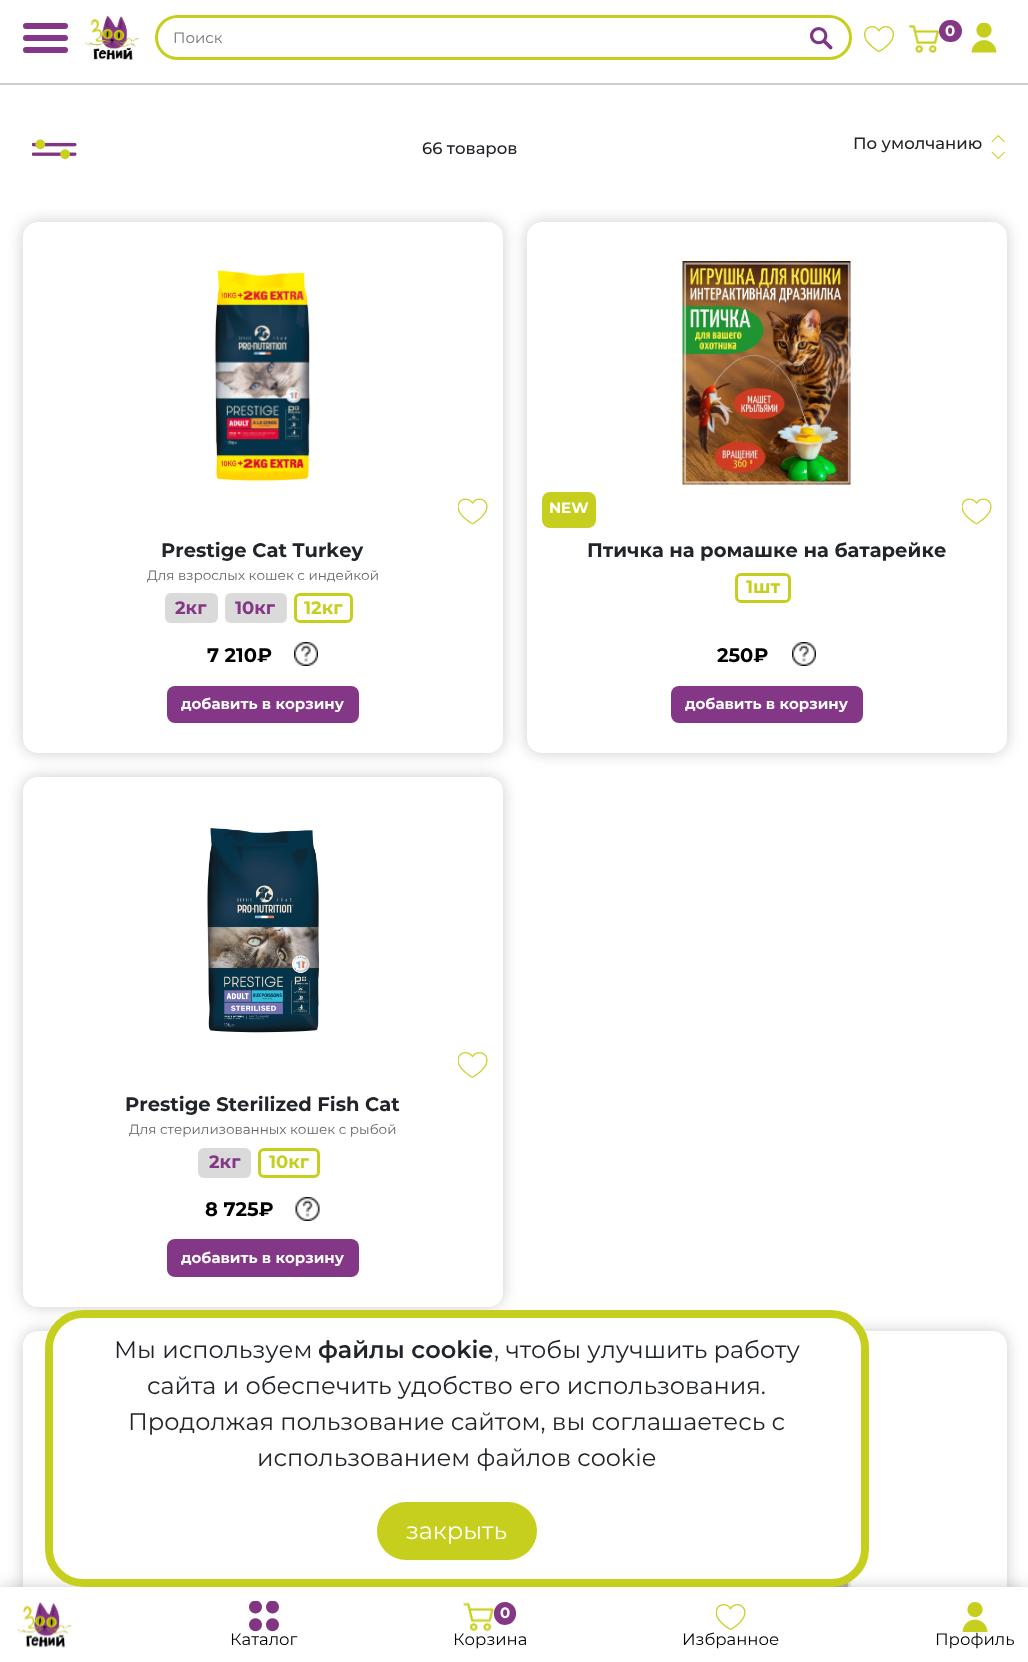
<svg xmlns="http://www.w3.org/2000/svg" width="1028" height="1662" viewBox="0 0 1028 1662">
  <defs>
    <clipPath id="clip1"><path d="M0 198H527V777H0ZM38 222H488C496.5 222 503 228.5 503 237V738C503 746.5 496.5 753 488 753H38C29.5 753 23 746.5 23 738V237C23 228.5 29.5 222 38 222Z" clip-rule="evenodd"/></clipPath>
    <filter id="blur1" x="-50%" y="-200%" width="200%" height="500%"><feGaussianBlur stdDeviation="7.5"/></filter>
    <clipPath id="clip2"><path d="M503 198H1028V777H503ZM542 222H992C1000.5 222 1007 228.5 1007 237V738C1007 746.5 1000.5 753 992 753H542C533.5 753 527 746.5 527 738V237C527 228.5 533.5 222 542 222Z" clip-rule="evenodd"/></clipPath>
    <clipPath id="clip3"><path d="M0 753H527V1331H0ZM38 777H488C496.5 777 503 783.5 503 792V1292C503 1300.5 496.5 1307 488 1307H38C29.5 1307 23 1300.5 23 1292V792C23 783.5 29.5 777 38 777Z" clip-rule="evenodd"/></clipPath>
    <clipPath id="clip4"><path d="M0 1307H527V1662H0ZM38 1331H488C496.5 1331 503 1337.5 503 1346V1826C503 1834.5 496.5 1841 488 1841H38C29.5 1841 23 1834.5 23 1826V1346C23 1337.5 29.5 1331 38 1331Z" clip-rule="evenodd"/></clipPath>
    <clipPath id="clip5"><path d="M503 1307H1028V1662H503ZM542 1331H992C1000.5 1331 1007 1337.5 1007 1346V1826C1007 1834.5 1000.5 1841 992 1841H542C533.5 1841 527 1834.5 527 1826V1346C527 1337.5 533.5 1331 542 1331Z" clip-rule="evenodd"/></clipPath>
  </defs>
  <rect width="100%" height="100%" fill="#ffffff"/>
  <rect x="0" y="83" width="1028" height="2" fill="#cccccc"/>
  <rect x="23" y="35" width="45" height="6" rx="3" fill="#843687"/>
  <rect x="23" y="23" width="45" height="6" rx="3" fill="#843687"/>
  <rect x="23" y="47" width="45" height="6" rx="3" fill="#843687"/>
  <image x="85" y="15" width="55" height="45" href="img1.png"/>
  <rect x="156.5" y="16.5" width="694" height="42" rx="21" fill="none" stroke="#c7cf1e" stroke-width="3"/>
  <text x="173" y="43" font-family="Montserrat" font-size="15" fill="#757575">Поиск</text>
  <image x="810" y="27" width="23" height="23" href="img2.png"/>
  <image x="864" y="26" width="30" height="26" href="img3.png"/>
  <image x="909" y="25" width="30" height="29" href="img4.png"/>
  <rect x="939" y="20" width="23" height="22" rx="11" fill="#843687"/>
  <text x="945" y="36" font-family="Montserrat" font-size="15" font-weight="bold" fill="#ffffff">0</text>
  <image x="971" y="23" width="26" height="30" href="img5.png"/>
  <image x="32" y="139" width="45" height="21" href="img6.png"/>
  <text x="422" y="154" font-family="Montserrat" font-size="16.5" font-weight="500" fill="#212529">66 товаров</text>
  <text x="853" y="149" font-family="Montserrat" font-size="16.5" font-weight="500" fill="#212529">По умолчанию</text>
  <image x="991" y="135" width="14" height="8" href="img7.png"/>
  <image x="991" y="151" width="14" height="8" href="img8.png"/>
  <g clip-path="url(#clip1)">
    <rect x="23" y="222" width="480" height="531" rx="15" fill="#000000" fill-opacity="0.2" filter="url(#blur1)"/>
  </g>
  <image x="214" y="270" width="97" height="212" href="img9.png"/>
  <image x="458" y="498" width="30" height="27" href="img10.png"/>
  <text x="161" y="557" font-family="Montserrat" font-size="19.5" font-weight="bold" fill="#212529">Prestige Cat Turkey</text>
  <text x="147" y="580" font-family="Montserrat" font-size="13.5" fill="#666666">Для взрослых кошек с индейкой</text>
  <rect x="165" y="593" width="53" height="30" rx="6" fill="#dadada"/>
  <text x="175" y="614" font-family="Montserrat" font-size="18" font-weight="bold" fill="#843687">2кг</text>
  <rect x="225" y="593" width="62" height="30" rx="6" fill="#dadada"/>
  <text x="235" y="614" font-family="Montserrat" font-size="18" font-weight="bold" fill="#843687">10кг</text>
  <rect x="295.5" y="594.5" width="56" height="27" rx="4.5" fill="none" stroke="#c7cf1e" stroke-width="3"/>
  <text x="304" y="614" font-family="Montserrat" font-size="18" font-weight="bold" fill="#c7cf1e">12кг</text>
  <text x="207" y="662" font-family="Montserrat" font-size="19.5" font-weight="bold" fill="#000000">7 210₽</text>
  <image x="294" y="642" width="24" height="24" href="img11.png"/>
  <rect x="167" y="686" width="192" height="37" rx="8" fill="#843687"/>
  <text x="181" y="709" font-family="Montserrat" font-size="15" font-weight="bold" fill="#ffffff">добавить в корзину</text>
  <g clip-path="url(#clip2)">
    <rect x="527" y="222" width="480" height="531" rx="15" fill="#000000" fill-opacity="0.2" filter="url(#blur1)"/>
  </g>
  <image x="682" y="261" width="169" height="224" href="img12.png"/>
  <rect x="542" y="492" width="54" height="36" rx="8" fill="#c7cf1e"/>
  <text x="549" y="513" font-family="Montserrat" font-size="15" font-weight="bold" fill="#ffffff">NEW</text>
  <image x="962" y="498" width="30" height="27" href="img10.png"/>
  <text x="587" y="557" font-family="Montserrat" font-size="19.5" font-weight="bold" fill="#212529">Птичка на ромашке на батарейке</text>
  <rect x="736.5" y="574.5" width="53" height="27" rx="4.5" fill="none" stroke="#c7cf1e" stroke-width="3"/>
  <text x="746" y="593" font-family="Montserrat" font-size="18" font-weight="bold" fill="#c7cf1e">1шт</text>
  <text x="717" y="662" font-family="Montserrat" font-size="19.5" font-weight="bold" fill="#000000">250₽</text>
  <image x="792" y="642" width="24" height="24" href="img13.png"/>
  <rect x="671" y="686" width="192" height="37" rx="8" fill="#843687"/>
  <text x="685" y="709" font-family="Montserrat" font-size="15" font-weight="bold" fill="#ffffff">добавить в корзину</text>
  <g clip-path="url(#clip3)">
    <rect x="23" y="777" width="480" height="530" rx="15" fill="#000000" fill-opacity="0.2" filter="url(#blur1)"/>
  </g>
  <image x="207" y="828" width="113" height="205" href="img14.png"/>
  <image x="458" y="1052" width="30" height="26" href="img15.png"/>
  <text x="125" y="1111" font-family="Montserrat" font-size="19.5" font-weight="bold" fill="#212529">Prestige Sterilized Fish Cat</text>
  <text x="129" y="1134" font-family="Montserrat" font-size="13.5" fill="#666666">Для стерилизованных кошек с рыбой</text>
  <rect x="198" y="1148" width="53" height="30" rx="6" fill="#dadada"/>
  <text x="209" y="1168" font-family="Montserrat" font-size="18" font-weight="bold" fill="#843687">2кг</text>
  <rect x="259.5" y="1149.5" width="59" height="27" rx="4.5" fill="none" stroke="#c7cf1e" stroke-width="3"/>
  <text x="269" y="1168" font-family="Montserrat" font-size="18" font-weight="bold" fill="#c7cf1e">10кг</text>
  <text x="205" y="1216" font-family="Montserrat" font-size="19.5" font-weight="bold" fill="#000000">8 725₽</text>
  <image x="295" y="1197" width="25" height="24" href="img16.png"/>
  <rect x="167" y="1239" width="192" height="38" rx="8" fill="#843687"/>
  <text x="181" y="1263" font-family="Montserrat" font-size="15" font-weight="bold" fill="#ffffff">добавить в корзину</text>
  <g clip-path="url(#clip4)">
    <rect x="23" y="1331" width="480" height="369" rx="15" fill="#000000" fill-opacity="0.2" filter="url(#blur1)"/>
  </g>
  <g clip-path="url(#clip5)">
    <rect x="527" y="1331" width="480" height="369" rx="15" fill="#000000" fill-opacity="0.2" filter="url(#blur1)"/>
  </g>
  <image x="831" y="1581" width="20" height="6" href="img17.png"/>
  <rect x="0" y="1587" width="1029" height="75" fill="#000000" fill-opacity="0.2" filter="url(#blur1)"/>
  <rect x="49" y="1314" width="816" height="269" rx="34" fill="#ffffff" stroke="#c7cf1e" stroke-width="8"/>
  <text x="114" y="1358" font-family="Montserrat" font-size="24" fill="#212529">Мы используем</text>
  <text x="318" y="1358" font-family="Montserrat" font-size="24" font-weight="600" fill="#212529">файлы cookie</text>
  <text x="494" y="1358" font-family="Montserrat" font-size="24" fill="#212529">, чтобы улучшить работу</text>
  <text x="147" y="1394" font-family="Montserrat" font-size="24" fill="#212529">сайта и обеспечить удобство его использования.</text>
  <text x="128" y="1430" font-family="Montserrat" font-size="24" fill="#212529">Продолжая пользование сайтом, вы соглашаетесь с</text>
  <text x="257" y="1466" font-family="Montserrat" font-size="24" fill="#212529">использованием файлов cookie</text>
  <rect x="377" y="1502" width="160" height="58" rx="29" fill="#c7cf1e"/>
  <text x="406" y="1539" font-family="Montserrat" font-size="24" fill="#ffffff">закрыть</text>
  <rect x="0" y="1587" width="1028" height="75" fill="#ffffff"/>
  <image x="17" y="1602" width="55" height="46" href="img18.png"/>
  <image x="249" y="1601" width="30" height="31" href="img19.png"/>
  <text x="230" y="1645" font-family="Montserrat" font-size="16.5" fill="#000000">Каталог</text>
  <image x="463" y="1602" width="31" height="30" href="img20.png"/>
  <rect x="494" y="1602" width="22" height="23" rx="11" fill="#843687"/>
  <text x="500" y="1618" font-family="Montserrat" font-size="15" font-weight="bold" fill="#ffffff">0</text>
  <text x="453" y="1645" font-family="Montserrat" font-size="16.5" fill="#000000">Корзина</text>
  <image x="716" y="1604" width="30" height="26" href="img21.png"/>
  <text x="682" y="1645" font-family="Montserrat" font-size="16.5" fill="#000000">Избранное</text>
  <image x="962" y="1602" width="26" height="30" href="img22.png"/>
  <text x="935" y="1645" font-family="Montserrat" font-size="16.5" fill="#000000">Профиль</text>
</svg>
